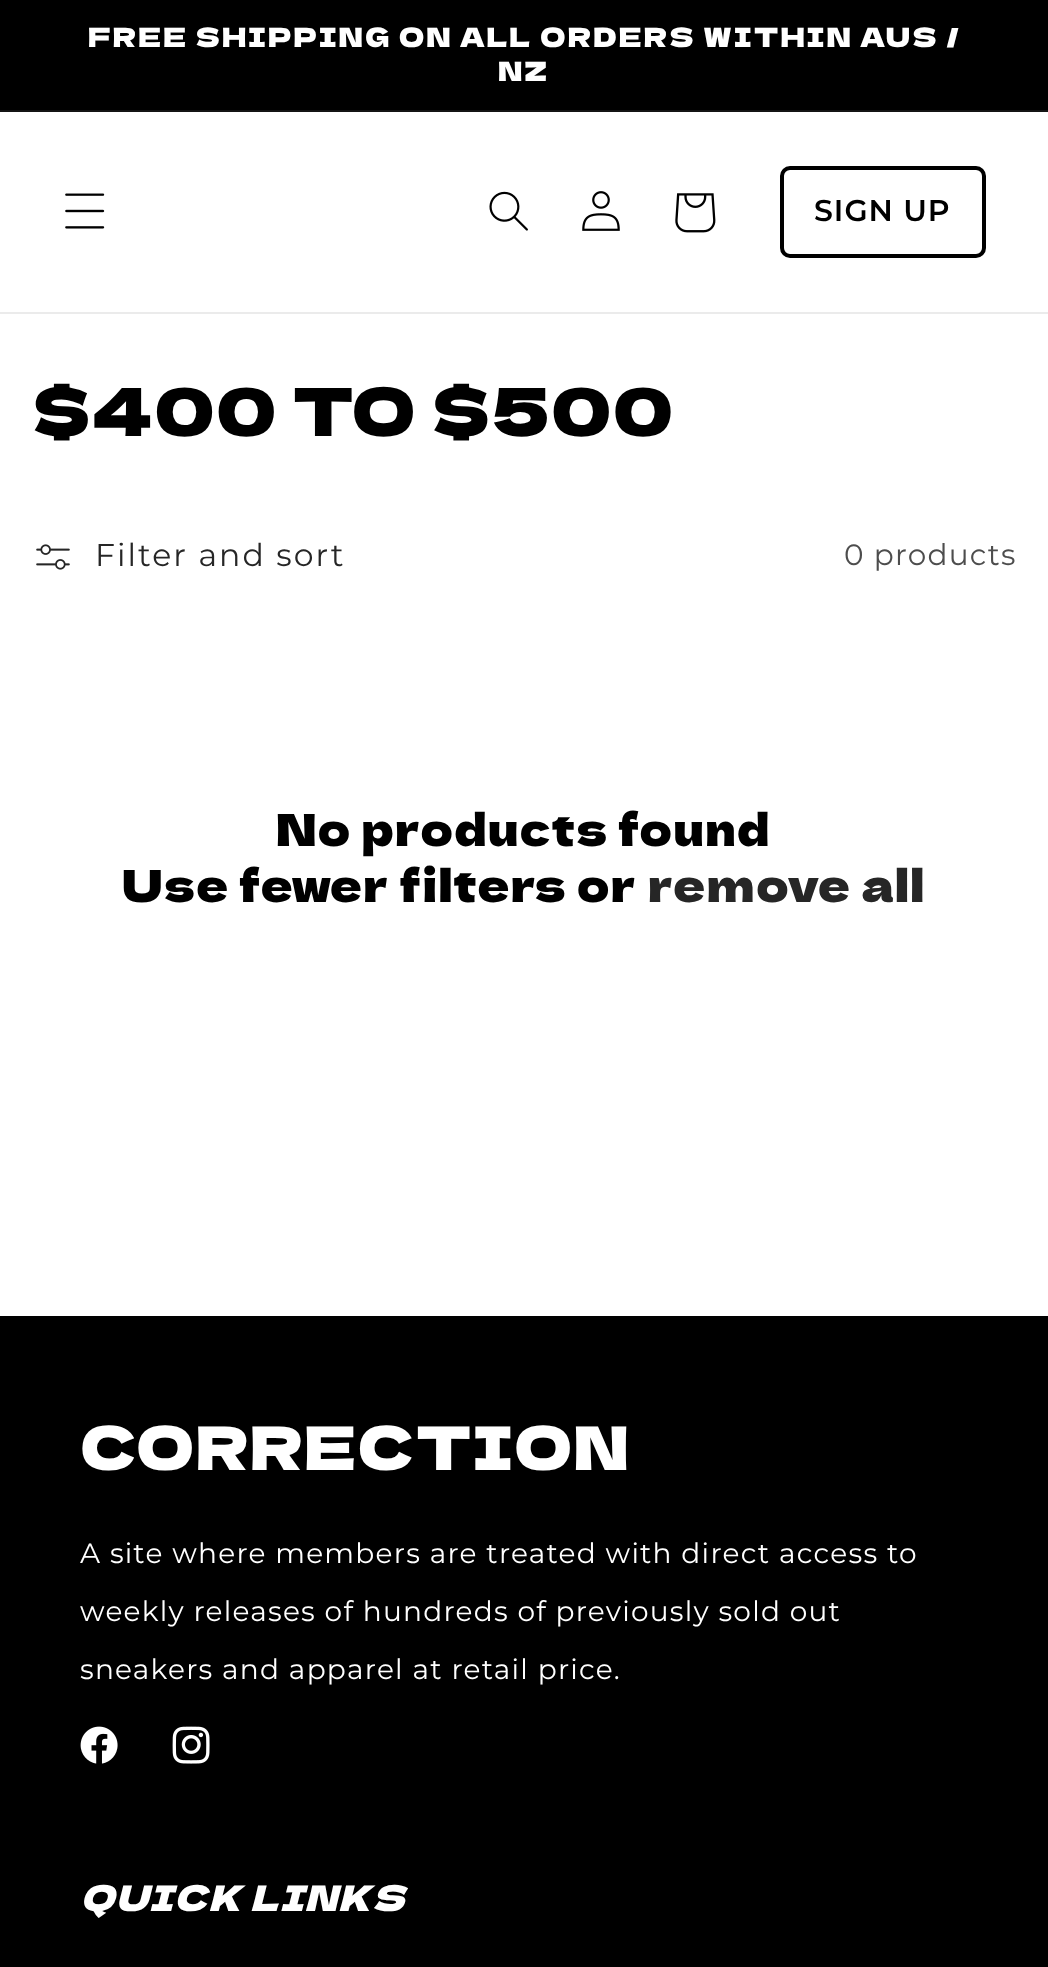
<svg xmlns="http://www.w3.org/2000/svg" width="1048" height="1967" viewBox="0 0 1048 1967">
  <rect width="100%" height="100%" fill="#ffffff"/>
  <rect x="0" y="0" width="1048" height="110" fill="#000000"/>
  <rect x="0" y="110" width="1048" height="2" fill="#141414"/>
  <text x="88" y="47" font-family="Dela Gothic One" font-size="26.4" letter-spacing="2.1" fill="#ffffff">FREE SHIPPING ON ALL ORDERS WITHIN AUS /</text>
  <text x="498" y="81" font-family="Dela Gothic One" font-size="26.4" letter-spacing="2.1" fill="#ffffff">NZ</text>
  <rect x="0" y="312" width="1048" height="2" fill="#ebebeb"/>
  <image x="65" y="193" width="40" height="36" href="img1.png"/>
  <image x="489" y="191" width="39" height="40" href="img2.png"/>
  <image x="582" y="191" width="38" height="40" href="img3.png"/>
  <image x="675" y="193" width="41" height="40" href="img4.png"/>
  <rect x="782" y="168" width="202" height="88" rx="8" fill="none" stroke="#000000" stroke-width="4"/>
  <text x="814" y="221" font-family="Montserrat" font-size="30" font-weight="600" letter-spacing="1" fill="#000000">SIGN UP</text>
  <text x="32" y="436" font-family="Dela Gothic One" font-size="66" letter-spacing="1.3" fill="#000000">$400 TO $500</text>
  <image x="36" y="544" width="34" height="26" href="img5.png"/>
  <text x="95" y="566" font-family="Montserrat" font-size="31.5" letter-spacing="2.1" fill="#262626">Filter and sort</text>
  <text x="844" y="565" font-family="Montserrat" font-size="29.5" letter-spacing="1.25" fill="#4d4d4d">0 products</text>
  <text x="276" y="846" font-family="Dela Gothic One" font-size="44" letter-spacing="1.3" fill="#000000">No products found</text>
  <text x="122" y="902" font-family="Dela Gothic One" font-size="44" letter-spacing="1.3" fill="#000000">Use fewer filters or</text>
  <text x="648" y="902" font-family="Dela Gothic One" font-size="44" letter-spacing="1.3" fill="#262626">remove all</text>
  <rect x="0" y="1316" width="1048" height="651" fill="#000000"/>
  <text x="80" y="1470" font-family="Dela Gothic One" font-size="60" letter-spacing="1.3" fill="#ffffff">CORRECTION</text>
  <text x="80" y="1563" font-family="Montserrat" font-size="28" letter-spacing="1.25" fill="#ffffff">A site where members are treated with direct access to</text>
  <text x="80" y="1621" font-family="Montserrat" font-size="28" letter-spacing="1.25" fill="#ffffff">weekly releases of hundreds of previously sold out</text>
  <text x="80" y="1679" font-family="Montserrat" font-size="28" letter-spacing="1.25" fill="#ffffff">sneakers and apparel at retail price.</text>
  <image x="80" y="1726" width="38" height="38" href="img6.png"/>
  <image x="172" y="1726" width="38" height="38" href="img7.png"/>
  <text x="80" y="1911" font-family="Dela Gothic One" font-size="35.25" font-style="italic" letter-spacing="1.3" fill="#ffffff">QUICK LINKS</text>
</svg>
